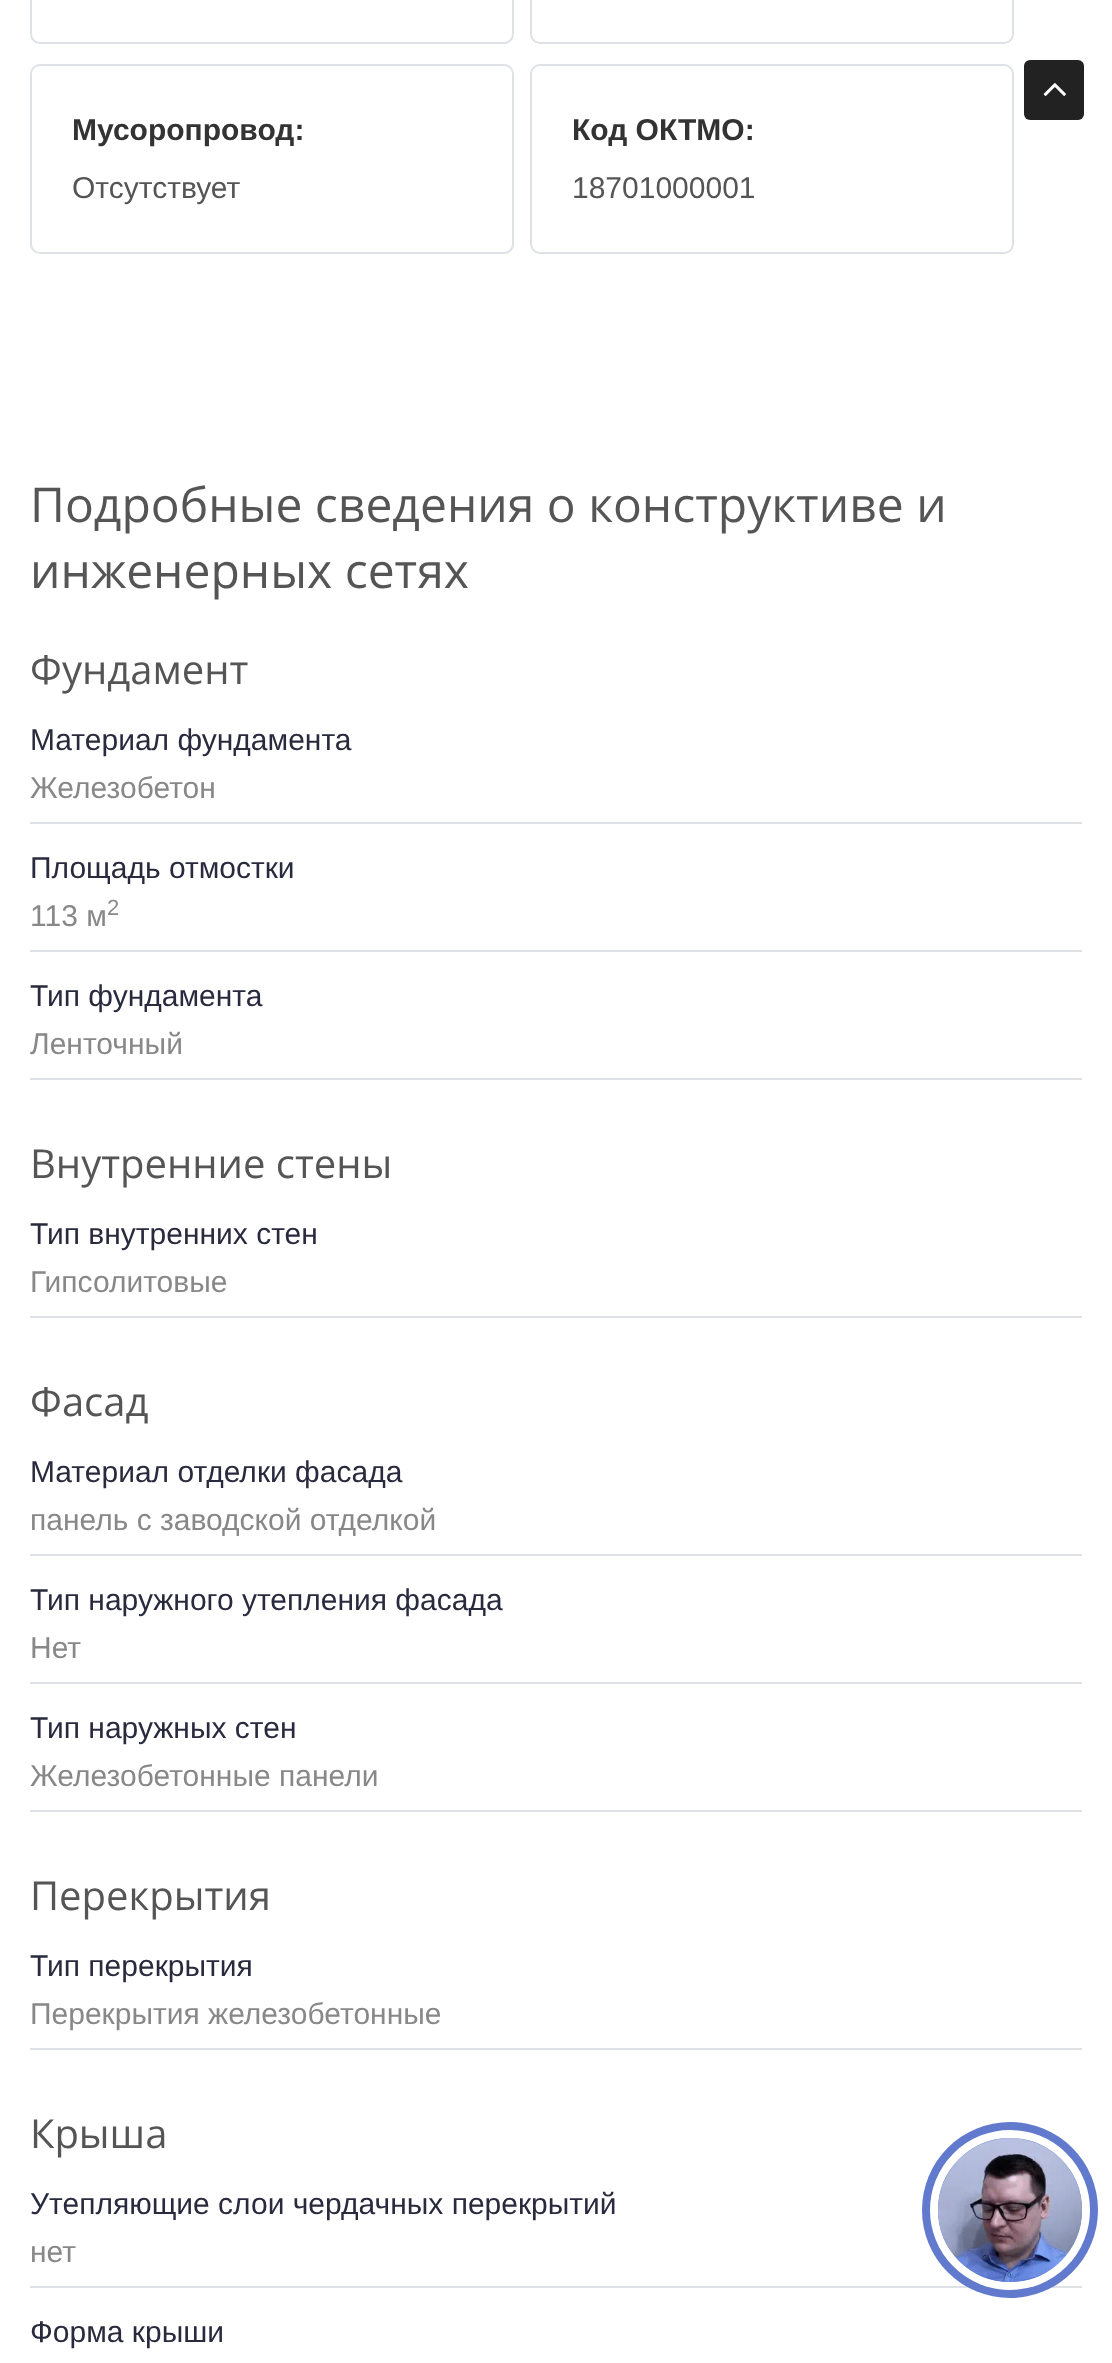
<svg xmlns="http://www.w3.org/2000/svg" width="1112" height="2363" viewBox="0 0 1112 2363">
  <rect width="100%" height="100%" fill="#ffffff"/>
  <rect x="1024" y="60" width="60" height="60" rx="6" fill="#222222"/>
  <image x="1043" y="83" width="23" height="13" href="img1.png"/>
  <rect x="31" y="-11" width="482" height="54" rx="9" fill="none" stroke="#dee2e6" stroke-width="2"/>
  <rect x="531" y="-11" width="482" height="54" rx="9" fill="none" stroke="#dee2e6" stroke-width="2"/>
  <rect x="31" y="65" width="482" height="188" rx="9" fill="none" stroke="#dee2e6" stroke-width="2"/>
  <text x="72" y="140" font-family="Liberation Sans" font-size="30" font-weight="bold" fill="#333333">Мусоропровод:</text>
  <text x="72" y="198" font-family="Liberation Sans" font-size="30" fill="#555555">Отсутствует</text>
  <rect x="531" y="65" width="482" height="188" rx="9" fill="none" stroke="#dee2e6" stroke-width="2"/>
  <text x="572" y="140" font-family="Liberation Sans" font-size="30" font-weight="bold" fill="#333333">Код ОКТМО:</text>
  <text x="572" y="198" font-family="Liberation Sans" font-size="30" fill="#555555">18701000001</text>
  <text x="30" y="522" font-family="Open Sans" font-size="48" fill="#555555">Подробные сведения о конструктиве и</text>
  <text x="30" y="588" font-family="Open Sans" font-size="48" fill="#555555">инженерных сетях</text>
  <text x="30" y="684" font-family="Open Sans" font-size="40" fill="#555555">Фундамент</text>
  <rect x="30" y="822" width="1052" height="2" fill="#dee2e6"/>
  <text x="30" y="750" font-family="Liberation Sans" font-size="30" fill="#292a3d">Материал фундамента</text>
  <text x="30" y="798" font-family="Liberation Sans" font-size="30" fill="#888888">Железобетон</text>
  <rect x="30" y="950" width="1052" height="2" fill="#dee2e6"/>
  <text x="30" y="878" font-family="Liberation Sans" font-size="30" fill="#292a3d">Площадь отмостки</text>
  <text x="30" y="926" font-family="Liberation Sans" font-size="30" fill="#888888">113 м</text>
  <text x="107" y="915" font-family="Liberation Sans" font-size="22" fill="#888888">2</text>
  <rect x="30" y="1078" width="1052" height="2" fill="#dee2e6"/>
  <text x="30" y="1006" font-family="Liberation Sans" font-size="30" fill="#292a3d">Тип фундамента</text>
  <text x="30" y="1054" font-family="Liberation Sans" font-size="30" fill="#888888">Ленточный</text>
  <text x="30" y="1178" font-family="Open Sans" font-size="40" fill="#555555">Внутренние стены</text>
  <rect x="30" y="1316" width="1052" height="2" fill="#dee2e6"/>
  <text x="30" y="1244" font-family="Liberation Sans" font-size="30" fill="#292a3d">Тип внутренних стен</text>
  <text x="30" y="1292" font-family="Liberation Sans" font-size="30" fill="#888888">Гипсолитовые</text>
  <text x="30" y="1416" font-family="Open Sans" font-size="40" fill="#555555">Фасад</text>
  <rect x="30" y="1554" width="1052" height="2" fill="#dee2e6"/>
  <text x="30" y="1482" font-family="Liberation Sans" font-size="30" fill="#292a3d">Материал отделки фасада</text>
  <text x="30" y="1530" font-family="Liberation Sans" font-size="30" fill="#888888">панель с заводской отделкой</text>
  <rect x="30" y="1682" width="1052" height="2" fill="#dee2e6"/>
  <text x="30" y="1610" font-family="Liberation Sans" font-size="30" fill="#292a3d">Тип наружного утепления фасада</text>
  <text x="30" y="1658" font-family="Liberation Sans" font-size="30" fill="#888888">Нет</text>
  <rect x="30" y="1810" width="1052" height="2" fill="#dee2e6"/>
  <text x="30" y="1738" font-family="Liberation Sans" font-size="30" fill="#292a3d">Тип наружных стен</text>
  <text x="30" y="1786" font-family="Liberation Sans" font-size="30" fill="#888888">Железобетонные панели</text>
  <text x="30" y="1910" font-family="Open Sans" font-size="40" fill="#555555">Перекрытия</text>
  <rect x="30" y="2048" width="1052" height="2" fill="#dee2e6"/>
  <text x="30" y="1976" font-family="Liberation Sans" font-size="30" fill="#292a3d">Тип перекрытия</text>
  <text x="30" y="2024" font-family="Liberation Sans" font-size="30" fill="#888888">Перекрытия железобетонные</text>
  <text x="30" y="2148" font-family="Open Sans" font-size="40" fill="#555555">Крыша</text>
  <rect x="30" y="2286" width="1052" height="2" fill="#dee2e6"/>
  <text x="30" y="2214" font-family="Liberation Sans" font-size="30" fill="#292a3d">Утепляющие слои чердачных перекрытий</text>
  <text x="30" y="2262" font-family="Liberation Sans" font-size="30" fill="#888888">нет</text>
  <text x="30" y="2342" font-family="Liberation Sans" font-size="30" fill="#292a3d">Форма крыши</text>
  <circle cx="1010" cy="2210" r="88" fill="#617ace"/>
  <circle cx="1010" cy="2210" r="76" fill="none" stroke="#ffffff" stroke-width="8"/>
  <image x="938" y="2138" width="144" height="144" href="img2.png"/>
</svg>
